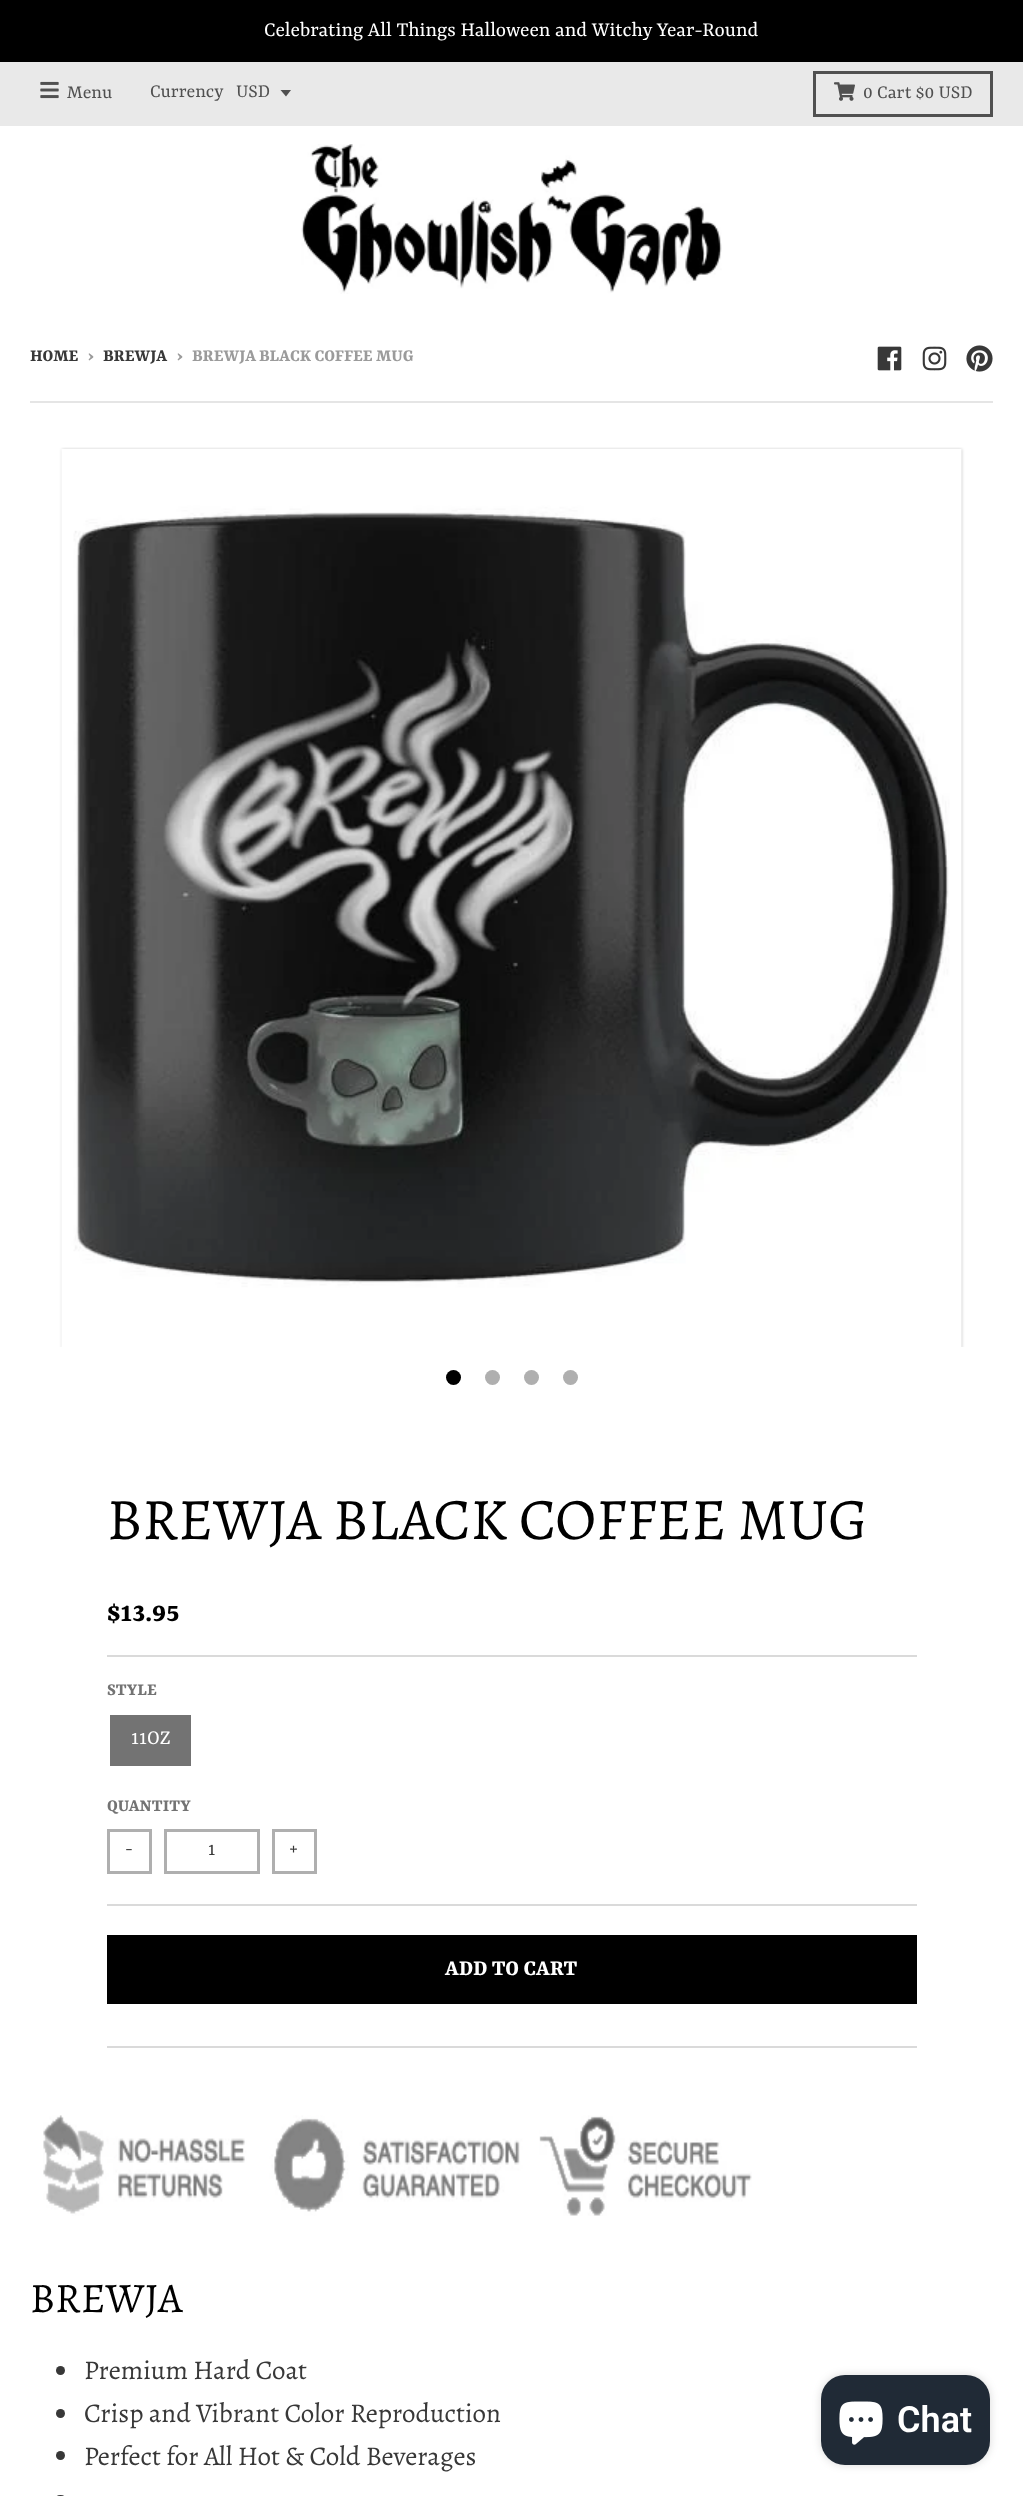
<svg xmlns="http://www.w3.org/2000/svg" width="1023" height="2496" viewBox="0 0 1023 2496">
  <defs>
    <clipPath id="clip1"><rect x="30" y="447" width="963" height="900"/></clipPath>
    <filter id="blur1" x="-50%" y="-200%" width="200%" height="500%"><feGaussianBlur stdDeviation="1.5"/></filter>
    <filter id="blur2" x="-50%" y="-200%" width="200%" height="500%"><feGaussianBlur stdDeviation="4"/></filter>
  </defs>
  <rect width="100%" height="100%" fill="#ffffff"/>
  <rect x="0" y="0" width="1023" height="62" fill="#000000"/>
  <text x="264" y="36" font-family="Rasa" font-size="21.9" fill="#ffffff">Celebrating All Things Halloween and Witchy Year-Round</text>
  <rect x="0" y="62" width="1023" height="64" fill="#e9e9e9"/>
  <image x="40" y="81" width="19" height="18" href="img1.png"/>
  <text x="67" y="98" font-family="Rasa" font-size="20.25" fill="#505050">Menu</text>
  <text x="150" y="97" font-family="Rasa" font-size="20.25" fill="#505050">Currency</text>
  <path d="M280.5 90L286 96.5L291 90Z" fill="#505050"/>
  <text x="236" y="97" font-family="Rasa" font-size="20.25" fill="#505050">USD</text>
  <rect x="814.5" y="72.5" width="177" height="43" fill="none" stroke="#505050" stroke-width="3"/>
  <image x="834" y="82" width="21" height="19" href="img2.png"/>
  <text x="863" y="98" font-family="Rasa" font-size="20.25" fill="#505050">0 Cart $0 USD</text>
  <image x="301" y="144" width="421" height="150" href="img3.png"/>
  <text x="30" y="361" font-family="Rasa" font-size="18.5" font-weight="bold" fill="#383838">HOME</text>
  <text x="88" y="361" font-family="Rasa" font-size="18.5" font-weight="bold" fill="#9b9b9b">›</text>
  <text x="103" y="361" font-family="Rasa" font-size="18.5" font-weight="bold" fill="#383838">BREWJA</text>
  <text x="177" y="361" font-family="Rasa" font-size="18.5" font-weight="bold" fill="#9b9b9b">›</text>
  <text x="192" y="361" font-family="Rasa" font-size="18.5" font-weight="bold" fill="#9b9b9b">BREWJA BLACK COFFEE MUG</text>
  <image x="877" y="346" width="25" height="25" href="img4.png"/>
  <image x="922" y="346" width="25" height="25" href="img5.png"/>
  <image x="966" y="345" width="27" height="27" href="img6.png"/>
  <rect x="30" y="401" width="963" height="2" fill="#e5e5e5"/>
  <g clip-path="url(#clip1)">
    <rect x="62" y="449" width="900" height="900" fill="#000000" fill-opacity="0.2" filter="url(#blur1)"/>
  </g>
  <image x="61" y="449" width="901" height="898" href="img7.png"/>
  <circle cx="453.5" cy="1377.5" r="7.5" fill="#000000"/>
  <circle cx="492.5" cy="1377.5" r="7.5" fill="#afafaf"/>
  <circle cx="531.5" cy="1377.5" r="7.5" fill="#afafaf"/>
  <circle cx="570.5" cy="1377.5" r="7.5" fill="#afafaf"/>
  <rect x="107" y="2046" width="810" height="2" fill="#dadada"/>
  <text x="107" y="1539" font-family="Alegreya" font-size="59" fill="#000000">BREWJA BLACK COFFEE MUG</text>
  <rect x="107" y="1655" width="810" height="2" fill="#dadada"/>
  <text x="107" y="1621" font-family="Rasa" font-size="30" font-weight="bold" fill="#000000">$13.95</text>
  <rect x="107" y="1904" width="810" height="2" fill="#dadada"/>
  <text x="107" y="1695" font-family="Rasa" font-size="18.5" font-weight="bold" fill="#737373">STYLE</text>
  <rect x="110" y="1715" width="81" height="51" fill="#737373"/>
  <text x="131" y="1744" font-family="Rasa" font-size="21.9" fill="#ffffff">11OZ</text>
  <text x="107" y="1811" font-family="Rasa" font-size="18.5" font-weight="bold" fill="#737373">QUANTITY</text>
  <rect x="108.5" y="1830.5" width="42" height="42" fill="none" stroke="#afafaf" stroke-width="3"/>
  <text x="125" y="1854" font-family="Rasa" font-size="20.25" fill="#383838">-</text>
  <rect x="165.5" y="1830.5" width="93" height="42" fill="none" stroke="#afafaf" stroke-width="3"/>
  <text x="208" y="1855" font-family="Rasa" font-size="20.25" fill="#383838">1</text>
  <rect x="273.5" y="1830.5" width="42" height="42" fill="none" stroke="#afafaf" stroke-width="3"/>
  <text x="289" y="1854" font-family="Rasa" font-size="20.25" fill="#383838">+</text>
  <rect x="107" y="1935" width="810" height="69" fill="#000000"/>
  <text x="445" y="1975" font-family="Rasa" font-size="23.5" font-weight="bold" fill="#ffffff">ADD TO CART</text>
  <image x="43" y="2115" width="709" height="101" href="img8.png"/>
  <text x="30" y="2312" font-family="Alegreya" font-size="42" fill="#000000">BREWJA</text>
  <circle cx="60.5" cy="2370.5" r="4.5" fill="#383838"/>
  <text x="84" y="2379" font-family="Alegreya" font-size="27" fill="#383838">Premium Hard Coat</text>
  <circle cx="60.5" cy="2413.5" r="4.5" fill="#383838"/>
  <text x="84" y="2422" font-family="Alegreya" font-size="27" fill="#383838">Crisp and Vibrant Color Reproduction</text>
  <circle cx="60.5" cy="2455.5" r="4.5" fill="#383838"/>
  <text x="84" y="2465" font-family="Alegreya" font-size="27" fill="#383838">Perfect for All Hot &amp; Cold Beverages</text>
  <rect x="56" y="2495" width="9" height="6" rx="4.5" fill="#383838"/>
  <rect x="821" y="2375" width="169" height="90" rx="24" fill="#000000" fill-opacity="0.15" filter="url(#blur2)"/>
  <rect x="821" y="2375" width="169" height="90" rx="24" fill="#202a36"/>
  <image x="839" y="2401" width="44" height="44" href="img9.png"/>
  <text x="897" y="2432" font-family="Roboto" font-size="36" font-weight="600" fill="#ffffff">Chat</text>
</svg>
